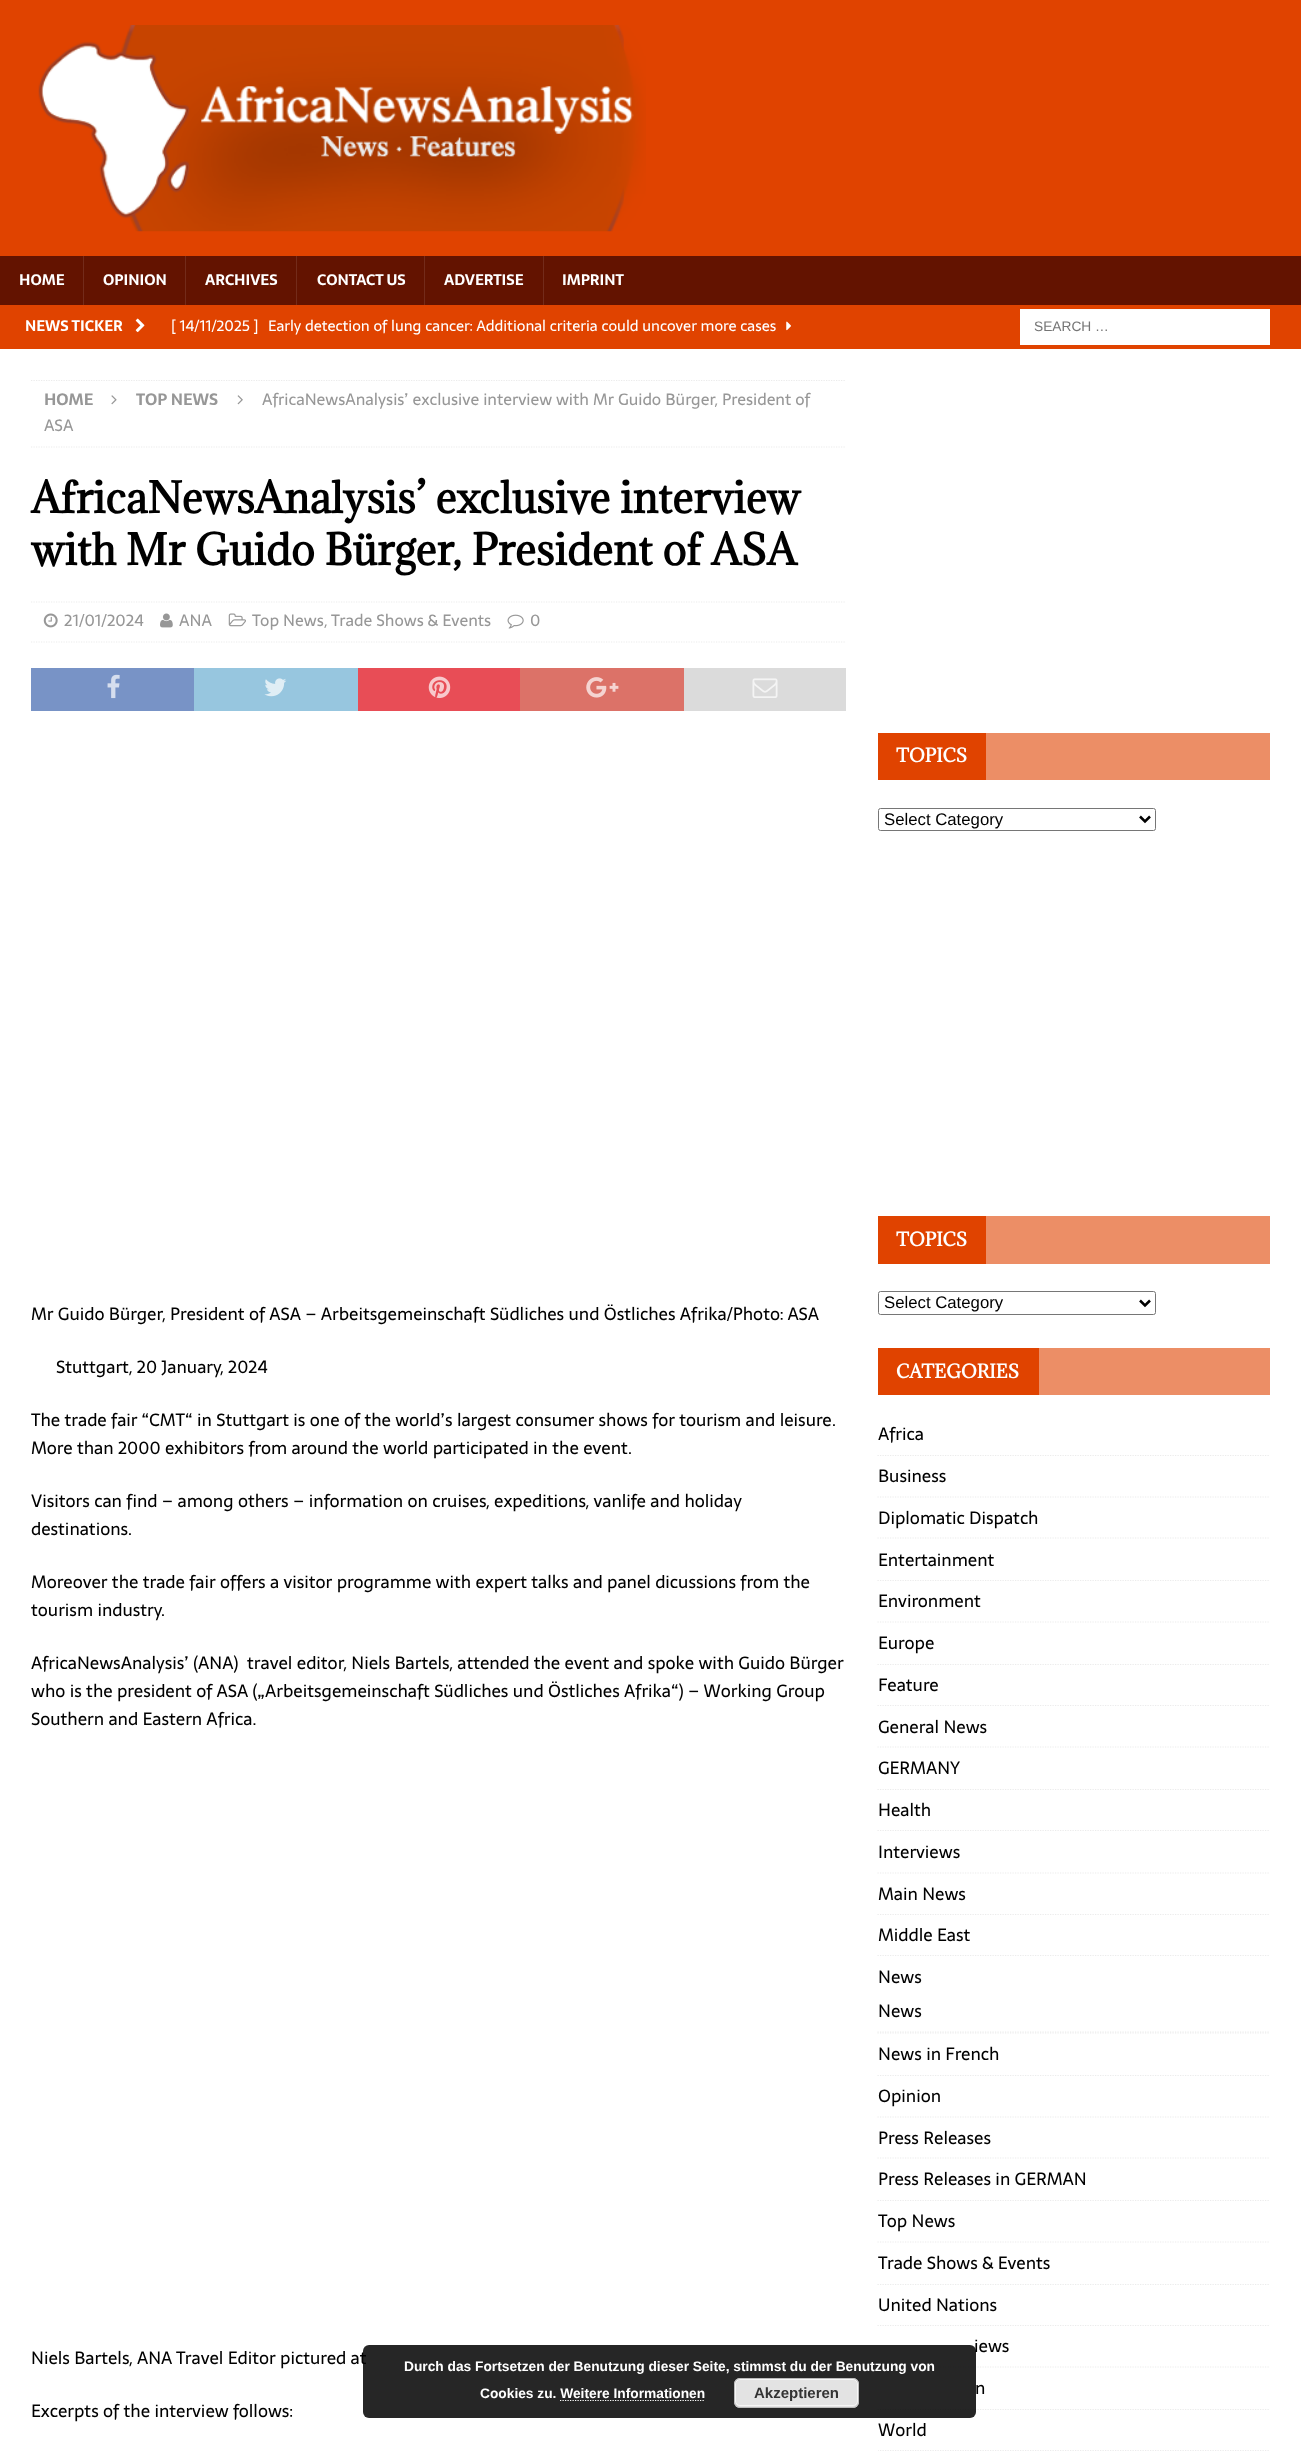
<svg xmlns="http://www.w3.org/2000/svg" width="1301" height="2455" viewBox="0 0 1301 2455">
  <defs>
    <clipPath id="clip1"><rect x="31" y="380" width="815" height="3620"/></clipPath>
    <clipPath id="clip2"><rect x="878" y="1348" width="392" height="1103"/></clipPath>
  </defs>
  <rect width="100%" height="100%" fill="#e04300"/>
  <image x="38" y="25" width="608" height="207" href="img1.png"/>
  <rect x="0" y="256" width="1301" height="49" fill="#631300"/>
  <text x="19" y="285" font-family="Sarala" font-size="15" font-weight="bold" fill="#ffffff">HOME</text>
  <rect x="83" y="256" width="1" height="49" fill="#732b1a"/>
  <text x="103" y="285" font-family="Sarala" font-size="15" font-weight="bold" fill="#ffffff">OPINION</text>
  <rect x="185" y="256" width="1" height="49" fill="#732b1a"/>
  <text x="205" y="285" font-family="Sarala" font-size="15" font-weight="bold" fill="#ffffff">ARCHIVES</text>
  <rect x="296" y="256" width="1" height="49" fill="#732b1a"/>
  <text x="317" y="285" font-family="Sarala" font-size="15" font-weight="bold" fill="#ffffff">CONTACT US</text>
  <rect x="424" y="256" width="1" height="49" fill="#732b1a"/>
  <text x="444" y="285" font-family="Sarala" font-size="15" font-weight="bold" fill="#ffffff">ADVERTISE</text>
  <rect x="543" y="256" width="1" height="49" fill="#732b1a"/>
  <text x="562" y="285" font-family="Sarala" font-size="15" font-weight="bold" fill="#ffffff">IMPRINT</text>
  <text x="25" y="331" font-family="Sarala" font-size="15" font-weight="bold" fill="#ffffff">NEWS TICKER</text>
  <image x="135" y="318" width="10" height="15" href="img2.png"/>
  <text x="171" y="331" font-family="Sarala" font-size="15" fill="#ffffff">[ 14/11/2025 ]</text>
  <text x="268" y="331" font-family="Sarala" font-size="15" fill="#ffffff">Early detection of lung cancer: Additional criteria could uncover more cases</text>
  <image x="786" y="321" width="5" height="10" href="img3.png"/>
  <rect x="1020" y="309" width="250" height="36" fill="#ffffff"/>
  <text x="1034" y="331" font-family="Liberation Sans" font-size="13.75" fill="#757575">SEARCH …</text>
  <rect x="0" y="349" width="1301" height="2106" fill="#ffffff"/>
  <g clip-path="url(#clip1)">
    <path d="M31 380.5H846" fill="none" stroke="#ebebeb" stroke-width="1.2" stroke-dasharray="1.25 1.25"/>
  </g>
  <path d="M31 447H846" fill="none" stroke="#ebebeb" stroke-width="1.2" stroke-dasharray="1.25 1.25"/>
  <text x="44" y="405" font-family="Sarala" font-size="16.25" font-weight="bold" fill="#979797">HOME</text>
  <image x="111" y="395" width="6" height="10" href="img4.png"/>
  <text x="136" y="405" font-family="Sarala" font-size="16.25" font-weight="bold" fill="#979797">TOP NEWS</text>
  <image x="237" y="395" width="6" height="10" href="img5.png"/>
  <text x="262" y="405" font-family="Sarala" font-size="16.25" fill="#979797">AfricaNewsAnalysis’ exclusive interview with Mr Guido Bürger, President of</text>
  <text x="44" y="431" font-family="Sarala" font-size="16.25" fill="#979797">ASA</text>
  <text x="31" y="513" font-family="Adamina" font-size="40" font-weight="bold" fill="#000000">AfricaNewsAnalysis’ exclusive interview</text>
  <text x="31" y="565" font-family="Adamina" font-size="40" font-weight="bold" fill="#000000">with Mr Guido Bürger, President of ASA</text>
  <path d="M31 602H846" fill="none" stroke="#ebebeb" stroke-width="1.2" stroke-dasharray="1.25 1.25"/>
  <path d="M31 642H846" fill="none" stroke="#ebebeb" stroke-width="1.2" stroke-dasharray="1.25 1.25"/>
  <image x="43" y="613" width="15" height="15" href="img6.png"/>
  <text x="64" y="626" font-family="Sarala" font-size="16.25" fill="#979797">21/01/2024</text>
  <image x="160" y="613" width="13" height="15" href="img7.png"/>
  <text x="179" y="626" font-family="Sarala" font-size="16.25" fill="#979797">ANA</text>
  <image x="228" y="613" width="18" height="14" href="img8.png"/>
  <text x="252" y="626" font-family="Sarala" font-size="16.25" fill="#979797">Top News</text>
  <text x="324" y="626" font-family="Sarala" font-size="16.25" fill="#979797">,</text>
  <text x="331" y="626" font-family="Sarala" font-size="16.25" fill="#979797">Trade Shows &amp; Events</text>
  <image x="507" y="614" width="17" height="15" href="img9.png"/>
  <text x="530" y="626" font-family="Sarala" font-size="16.25" fill="#979797">0</text>
  <rect x="31" y="668" width="163" height="43" fill="#7893c6"/>
  <image x="107" y="674" width="13" height="25" href="img10.png"/>
  <rect x="194" y="668" width="164" height="43" fill="#97c6df"/>
  <image x="264" y="678" width="23" height="19" href="img11.png"/>
  <rect x="358" y="668" width="162" height="43" fill="#e84d56"/>
  <image x="428" y="676" width="23" height="22" href="img12.png"/>
  <rect x="520" y="668" width="164" height="43" fill="#dc7268"/>
  <image x="586" y="677" width="33" height="21" href="img13.png"/>
  <rect x="684" y="668" width="162" height="43" fill="#dbdbdb"/>
  <image x="752" y="678" width="26" height="20" href="img14.png"/>
  <text x="31" y="1320" font-family="Sarala" font-size="17.5" fill="#000000">Mr Guido Bürger, President of ASA – Arbeitsgemeinschaft Südliches und Östliches Afrika/Photo: ASA</text>
  <text x="56" y="1373" font-family="Sarala" font-size="17.5" fill="#000000">Stuttgart, 20 January, 2024</text>
  <text x="31" y="1426" font-family="Sarala" font-size="17.5" fill="#000000">The trade fair “CMT“ in Stuttgart is one of the world’s largest consumer shows for tourism and leisure.</text>
  <text x="31" y="1454" font-family="Sarala" font-size="17.5" fill="#000000">More than 2000 exhibitors from around the world participated in the event.</text>
  <text x="31" y="1507" font-family="Sarala" font-size="17.5" fill="#000000">Visitors can find – among others – information on cruises, expeditions, vanlife and holiday</text>
  <text x="31" y="1535" font-family="Sarala" font-size="17.5" fill="#000000">destinations.</text>
  <text x="31" y="1588" font-family="Sarala" font-size="17.5" fill="#000000">Moreover the trade fair offers a visitor programme with expert talks and panel dicussions from the</text>
  <text x="31" y="1616" font-family="Sarala" font-size="17.5" fill="#000000">tourism industry.</text>
  <text x="31" y="1669" font-family="Sarala" font-size="17.5" fill="#000000" xml:space="preserve">AfricaNewsAnalysis’ (ANA)  travel editor, Niels Bartels, attended the event and spoke with Guido Bürger</text>
  <text x="31" y="1697" font-family="Sarala" font-size="17.5" fill="#000000">who is the president of ASA („Arbeitsgemeinschaft Südliches und Östliches Afrika“) – Working Group</text>
  <text x="31" y="1725" font-family="Sarala" font-size="17.5" fill="#000000">Southern and Eastern Africa.</text>
  <text x="31" y="2364" font-family="Sarala" font-size="17.5" fill="#000000">Niels Bartels, ANA Travel Editor pictured at</text>
  <text x="31" y="2417" font-family="Sarala" font-size="17.5" fill="#000000">Excerpts of the interview follows:</text>
  <rect x="986" y="733" width="284" height="47" fill="#ec8e66"/>
  <rect x="878" y="733" width="108" height="47" fill="#e04300"/>
  <text x="896" y="762" font-family="Adamina" font-size="17.5" font-weight="bold" fill="#ffffff">TOPICS</text>
  <rect x="878.5" y="808.5" width="277" height="22" rx="2" fill="none" stroke="#767676"/>
  <path d="M1140 816.5L1145 821.5L1150 816.5" fill="none" stroke="#000000" stroke-width="2.5"/>
  <text x="884" y="825" font-family="Liberation Sans" font-size="16.75" fill="#000000">Select Category</text>
  <rect x="986" y="1216" width="284" height="48" fill="#ec8e66"/>
  <rect x="878" y="1216" width="108" height="48" fill="#e04300"/>
  <text x="896" y="1246" font-family="Adamina" font-size="17.5" font-weight="bold" fill="#ffffff">TOPICS</text>
  <rect x="878.5" y="1291.5" width="277" height="23" rx="2" fill="none" stroke="#767676"/>
  <path d="M1140 1300.5L1145 1305.5L1150 1300.5" fill="none" stroke="#000000" stroke-width="2.5"/>
  <text x="884" y="1308" font-family="Liberation Sans" font-size="16.75" fill="#000000">Select Category</text>
  <rect x="1039" y="1348" width="231" height="47" fill="#ec8e66"/>
  <rect x="878" y="1348" width="161" height="47" fill="#e04300"/>
  <text x="896" y="1378" font-family="Adamina" font-size="17.5" font-weight="bold" fill="#ffffff">CATEGORIES</text>
  <path d="M877.5 1455.5H1270" fill="none" stroke="#ebebeb" stroke-width="1.2" stroke-dasharray="1.25 1.25"/>
  <text x="878" y="1440" font-family="Sarala" font-size="17.5" fill="#000000">Africa</text>
  <path d="M877.5 1497H1270" fill="none" stroke="#ebebeb" stroke-width="1.2" stroke-dasharray="1.25 1.25"/>
  <text x="878" y="1482" font-family="Sarala" font-size="17.5" fill="#000000">Business</text>
  <path d="M877.5 1538H1270" fill="none" stroke="#ebebeb" stroke-width="1.2" stroke-dasharray="1.25 1.25"/>
  <text x="878" y="1524" font-family="Sarala" font-size="17.5" fill="#000000">Diplomatic Dispatch</text>
  <path d="M877.5 1580.5H1270" fill="none" stroke="#ebebeb" stroke-width="1.2" stroke-dasharray="1.25 1.25"/>
  <text x="878" y="1566" font-family="Sarala" font-size="17.5" fill="#000000">Entertainment</text>
  <path d="M877.5 1622H1270" fill="none" stroke="#ebebeb" stroke-width="1.2" stroke-dasharray="1.25 1.25"/>
  <text x="878" y="1607" font-family="Sarala" font-size="17.5" fill="#000000">Environment</text>
  <path d="M877.5 1664.5H1270" fill="none" stroke="#ebebeb" stroke-width="1.2" stroke-dasharray="1.25 1.25"/>
  <text x="878" y="1649" font-family="Sarala" font-size="17.5" fill="#000000">Europe</text>
  <path d="M877.5 1705.5H1270" fill="none" stroke="#ebebeb" stroke-width="1.2" stroke-dasharray="1.25 1.25"/>
  <text x="878" y="1691" font-family="Sarala" font-size="17.5" fill="#000000">Feature</text>
  <path d="M877.5 1747H1270" fill="none" stroke="#ebebeb" stroke-width="1.2" stroke-dasharray="1.25 1.25"/>
  <text x="878" y="1733" font-family="Sarala" font-size="17.5" fill="#000000">General News</text>
  <path d="M877.5 1789.5H1270" fill="none" stroke="#ebebeb" stroke-width="1.2" stroke-dasharray="1.25 1.25"/>
  <text x="878" y="1774" font-family="Sarala" font-size="17.5" fill="#000000">GERMANY</text>
  <path d="M877.5 1830.5H1270" fill="none" stroke="#ebebeb" stroke-width="1.2" stroke-dasharray="1.25 1.25"/>
  <text x="878" y="1816" font-family="Sarala" font-size="17.5" fill="#000000">Health</text>
  <path d="M877.5 1873H1270" fill="none" stroke="#ebebeb" stroke-width="1.2" stroke-dasharray="1.25 1.25"/>
  <text x="878" y="1858" font-family="Sarala" font-size="17.5" fill="#000000">Interviews</text>
  <path d="M877.5 1914.5H1270" fill="none" stroke="#ebebeb" stroke-width="1.2" stroke-dasharray="1.25 1.25"/>
  <text x="878" y="1900" font-family="Sarala" font-size="17.5" fill="#000000">Main News</text>
  <path d="M877.5 1955.5H1270" fill="none" stroke="#ebebeb" stroke-width="1.2" stroke-dasharray="1.25 1.25"/>
  <text x="878" y="1941" font-family="Sarala" font-size="17.5" fill="#000000">Middle East</text>
  <path d="M877.5 2033H1270" fill="none" stroke="#ebebeb" stroke-width="1.2" stroke-dasharray="1.25 1.25"/>
  <text x="878" y="1983" font-family="Sarala" font-size="17.5" fill="#000000">News</text>
  <path d="M877.5 2032H1270" fill="none" stroke="#ebebeb" stroke-width="1.2" stroke-dasharray="1.25 1.25"/>
  <text x="878" y="2017" font-family="Sarala" font-size="17.5" fill="#000000">News</text>
  <path d="M877.5 2075.5H1270" fill="none" stroke="#ebebeb" stroke-width="1.2" stroke-dasharray="1.25 1.25"/>
  <text x="878" y="2060" font-family="Sarala" font-size="17.5" fill="#000000">News in French</text>
  <path d="M877.5 2117H1270" fill="none" stroke="#ebebeb" stroke-width="1.2" stroke-dasharray="1.25 1.25"/>
  <text x="878" y="2102" font-family="Sarala" font-size="17.5" fill="#000000">Opinion</text>
  <path d="M877.5 2158H1270" fill="none" stroke="#ebebeb" stroke-width="1.2" stroke-dasharray="1.25 1.25"/>
  <text x="878" y="2144" font-family="Sarala" font-size="17.5" fill="#000000">Press Releases</text>
  <path d="M877.5 2200.5H1270" fill="none" stroke="#ebebeb" stroke-width="1.2" stroke-dasharray="1.25 1.25"/>
  <text x="878" y="2185" font-family="Sarala" font-size="17.5" fill="#000000">Press Releases in GERMAN</text>
  <path d="M877.5 2242H1270" fill="none" stroke="#ebebeb" stroke-width="1.2" stroke-dasharray="1.25 1.25"/>
  <text x="878" y="2227" font-family="Sarala" font-size="17.5" fill="#000000">Top News</text>
  <path d="M877.5 2284.5H1270" fill="none" stroke="#ebebeb" stroke-width="1.2" stroke-dasharray="1.25 1.25"/>
  <text x="878" y="2269" font-family="Sarala" font-size="17.5" fill="#000000">Trade Shows &amp; Events</text>
  <path d="M877.5 2325.5H1270" fill="none" stroke="#ebebeb" stroke-width="1.2" stroke-dasharray="1.25 1.25"/>
  <text x="878" y="2311" font-family="Sarala" font-size="17.5" fill="#000000">United Nations</text>
  <path d="M877.5 2367H1270" fill="none" stroke="#ebebeb" stroke-width="1.2" stroke-dasharray="1.25 1.25"/>
  <text x="974" y="2352" font-family="Sarala" font-size="17.5" fill="#000000">iews</text>
  <path d="M877.5 2409.5H1270" fill="none" stroke="#ebebeb" stroke-width="1.2" stroke-dasharray="1.25 1.25"/>
  <text x="975" y="2394" font-family="Sarala" font-size="17.5" fill="#000000">n</text>
  <g clip-path="url(#clip2)">
    <path d="M877.5 2450.5H1270" fill="none" stroke="#ebebeb" stroke-width="1.2" stroke-dasharray="1.25 1.25"/>
  </g>
  <text x="878" y="2436" font-family="Sarala" font-size="17.5" fill="#000000">World</text>
  <rect x="363" y="2345" width="613" height="73" rx="6" fill="#000000" fill-opacity="0.85"/>
  <text x="404" y="2371" font-family="Liberation Sans" font-size="13.75" font-weight="bold" fill="#ffffff">Durch das Fortsetzen der Benutzung dieser Seite, stimmst du der Benutzung von</text>
  <text x="480" y="2398" font-family="Liberation Sans" font-size="13.75" font-weight="bold" fill="#ffffff">Cookies zu. Weitere Informationen</text>
  <rect x="734" y="2378" width="125" height="30" rx="6" fill="#e3e3e3"/>
  <rect x="735.5" y="2379.5" width="122" height="26" rx="4.5" fill="none" stroke="#f6f6f6"/>
  <rect x="734.5" y="2378.5" width="124" height="29" rx="5.5" fill="none" stroke="#bbbbbb"/>
  <text x="754" y="2398" font-family="Liberation Sans" font-size="15" font-weight="bold" fill="#333333">Akzeptieren</text>
  <path d="M560 2400.5H705" fill="none" stroke="#ffffff" stroke-width="1.2" stroke-dasharray="1.25 1.25"/>
</svg>
